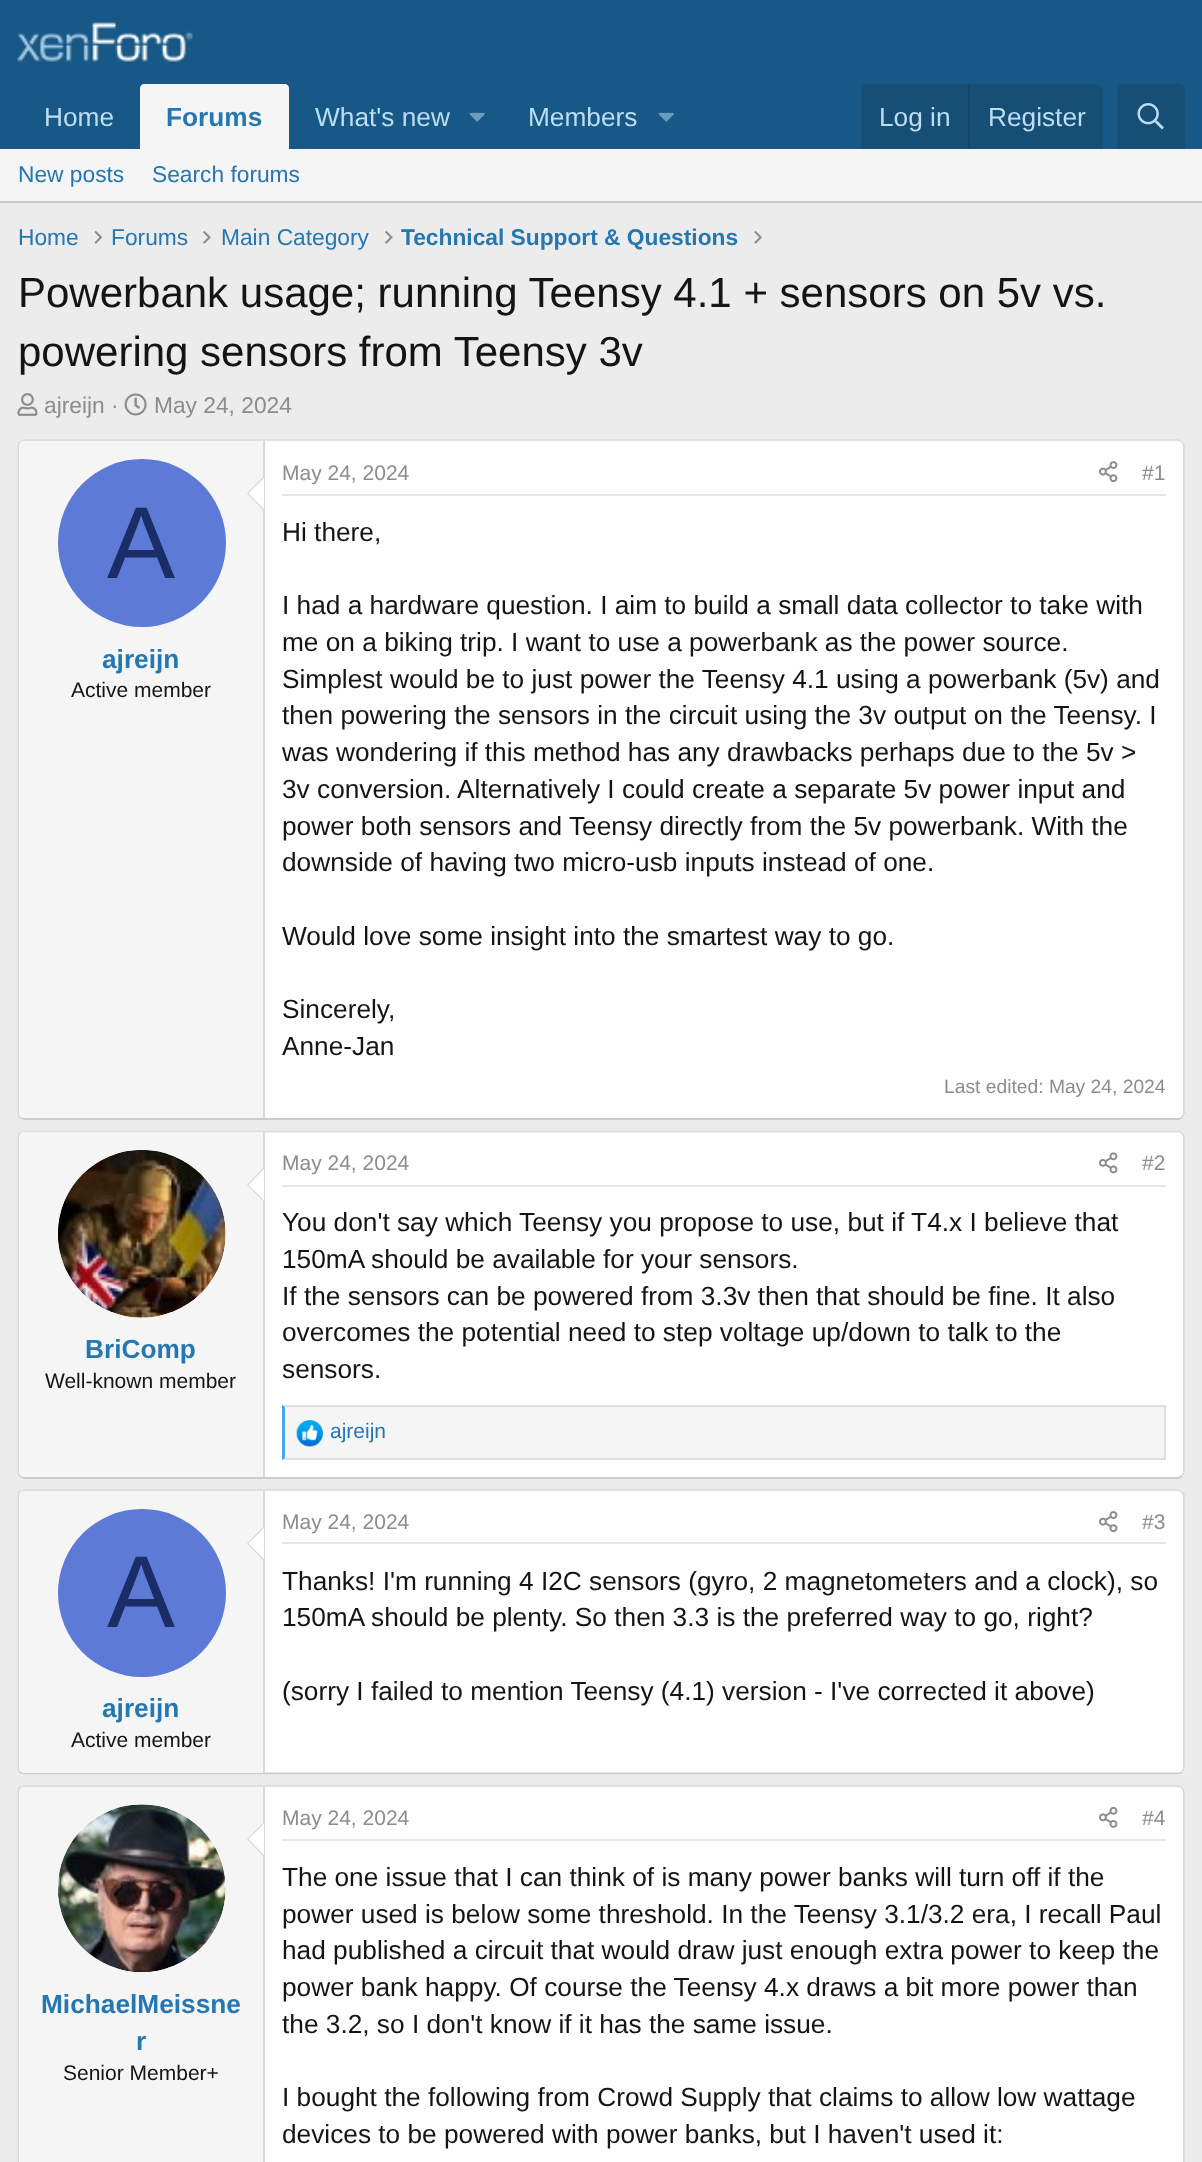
<svg xmlns="http://www.w3.org/2000/svg" width="1202" height="2162" viewBox="0 0 1202 2162">
  <rect width="100%" height="100%" fill="#ececec"/>
  <rect x="0" y="0" width="1202" height="149" fill="#185886"/>
  <image x="17" y="22" width="176" height="40" href="img1.png"/>
  <text x="44" y="126" font-family="Liberation Sans" font-size="26.25" fill="#bcdef5">Home</text>
  <path d="M144 84H285C287 84 289 86 289 88V149H140V88C140 86 142 84 144 84Z" fill="#f5f5f5"/>
  <text x="166" y="126" font-family="Liberation Sans" font-size="26.25" font-weight="bold" fill="#2577b1">Forums</text>
  <text x="315" y="126" font-family="Liberation Sans" font-size="26.25" fill="#bcdef5">What's new</text>
  <image x="469" y="112" width="16" height="10" href="img2.png"/>
  <text x="528" y="126" font-family="Liberation Sans" font-size="26.25" fill="#bcdef5">Members</text>
  <image x="658" y="112" width="16" height="10" href="img2.png"/>
  <path d="M868 84H1096C1100 84 1103 87 1103 91V149H861V91C861 87 864 84 868 84Z" fill="#174e75"/>
  <text x="879" y="126" font-family="Liberation Sans" font-size="26.25" fill="#bcdef5">Log in</text>
  <rect x="968" y="84" width="2" height="65" fill="#174566"/>
  <text x="988" y="126" font-family="Liberation Sans" font-size="26.25" fill="#bcdef5">Register</text>
  <path d="M1124 84H1178C1182 84 1185 87 1185 91V149H1117V91C1117 87 1120 84 1124 84Z" fill="#174e75"/>
  <image x="1137" y="103" width="27" height="27" href="img3.png"/>
  <rect x="0" y="149" width="1202" height="52" fill="#f5f5f5"/>
  <rect x="0" y="201" width="1202" height="2" fill="#cbcbcb"/>
  <text x="18" y="182" font-family="Liberation Sans" font-size="22.75" fill="#2577b1">New posts</text>
  <text x="152" y="182" font-family="Liberation Sans" font-size="22.75" fill="#2577b1">Search forums</text>
  <text x="18" y="245" font-family="Liberation Sans" font-size="22.75" fill="#2577b1">Home</text>
  <image x="94" y="231" width="9" height="13" href="img4.png"/>
  <text x="111" y="245" font-family="Liberation Sans" font-size="22.75" fill="#2577b1">Forums</text>
  <image x="203" y="231" width="8" height="13" href="img5.png"/>
  <text x="221" y="245" font-family="Liberation Sans" font-size="22.75" fill="#2577b1">Main Category</text>
  <image x="385" y="231" width="8" height="13" href="img5.png"/>
  <text x="401" y="245" font-family="Liberation Sans" font-size="22.75" font-weight="bold" fill="#2577b1">Technical Support &amp; Questions</text>
  <image x="754" y="231" width="8" height="13" href="img6.png"/>
  <text x="18" y="307" font-family="Liberation Sans" font-size="42" fill="#141414">Powerbank usage; running Teensy 4.1 + sensors on 5v vs.</text>
  <text x="18" y="366" font-family="Liberation Sans" font-size="42" fill="#141414">powering sensors from Teensy 3v</text>
  <image x="17" y="393" width="21" height="23" href="img7.png"/>
  <text x="44" y="413" font-family="Liberation Sans" font-size="22.75" fill="#8c8c8c">ajreijn ·</text>
  <image x="124" y="393" width="23" height="23" href="img8.png"/>
  <text x="154" y="413" font-family="Liberation Sans" font-size="22.75" fill="#8c8c8c">May 24, 2024</text>
  <rect x="18" y="439" width="1167" height="681" rx="7" fill="#fefefe"/>
  <path d="M20 442C21.5 441 23 440 24.5 440H1178C1179.5 440 1181 441 1182 442" fill="none" stroke="#dfdfdf" stroke-width="1.8"/>
  <path d="M1182 442C1183 443 1184 444.5 1184 446V1113C1184 1114.5 1183 1116 1182 1117.5" fill="none" stroke="#d8d8d8" stroke-width="1.8"/>
  <path d="M1182 1117.5C1181 1118.5 1179.5 1119 1178 1119H24.5C23 1119 21.5 1118.5 20 1117.5" fill="none" stroke="#cbcbcb" stroke-width="1.8"/>
  <path d="M20 1117.5C19 1116 18.5 1114.5 18.5 1113V446C18.5 444.5 19 443 20 442" fill="none" stroke="#d8d8d8" stroke-width="1.8"/>
  <path d="M24 441H264V1118H24C21 1118 19 1116 19 1113V446C19 443 21 441 24 441Z" fill="#f5f5f5"/>
  <rect x="263" y="441" width="2" height="677" fill="#d8d8d8"/>
  <path d="M264 476V511L247 493.5Z" fill="#d8d8d8"/>
  <path d="M264 478V509L248.5 493.5Z" fill="#fefefe"/>
  <circle cx="142" cy="543" r="84" fill="#5c7ad6"/>
  <text x="107" y="578" font-family="Liberation Sans" font-size="102" fill="#1a2d66">A</text>
  <text x="102" y="668" font-family="Liberation Sans" font-size="26.25" font-weight="bold" fill="#2577b1">ajreijn</text>
  <text x="71" y="697" font-family="Liberation Sans" font-size="21" fill="#141414">Active member</text>
  <rect x="282" y="494" width="884" height="2" fill="#e7e7e7"/>
  <text x="282" y="480" font-family="Liberation Sans" font-size="21" fill="#8c8c8c">May 24, 2024</text>
  <image x="1099" y="461" width="19" height="22" href="img9.png"/>
  <text x="1142" y="480" font-family="Liberation Sans" font-size="21" fill="#8c8c8c">#1</text>
  <text x="282" y="541" font-family="Liberation Sans" font-size="26.25" fill="#141414">Hi there,</text>
  <text x="282" y="614" font-family="Liberation Sans" font-size="26.25" fill="#141414">I had a hardware question. I aim to build a small data collector to take with</text>
  <text x="282" y="651" font-family="Liberation Sans" font-size="26.25" fill="#141414">me on a biking trip. I want to use a powerbank as the power source.</text>
  <text x="282" y="688" font-family="Liberation Sans" font-size="26.25" fill="#141414">Simplest would be to just power the Teensy 4.1 using a powerbank (5v) and</text>
  <text x="282" y="724" font-family="Liberation Sans" font-size="26.25" fill="#141414">then powering the sensors in the circuit using the 3v output on the Teensy. I</text>
  <text x="282" y="761" font-family="Liberation Sans" font-size="26.25" fill="#141414">was wondering if this method has any drawbacks perhaps due to the 5v &gt;</text>
  <text x="282" y="798" font-family="Liberation Sans" font-size="26.25" fill="#141414">3v conversion. Alternatively I could create a separate 5v power input and</text>
  <text x="282" y="835" font-family="Liberation Sans" font-size="26.25" fill="#141414">power both sensors and Teensy directly from the 5v powerbank. With the</text>
  <text x="282" y="871" font-family="Liberation Sans" font-size="26.25" fill="#141414">downside of having two micro-usb inputs instead of one.</text>
  <text x="282" y="945" font-family="Liberation Sans" font-size="26.25" fill="#141414">Would love some insight into the smartest way to go.</text>
  <text x="282" y="1018" font-family="Liberation Sans" font-size="26.25" fill="#141414">Sincerely,</text>
  <text x="282" y="1055" font-family="Liberation Sans" font-size="26.25" fill="#141414">Anne-Jan</text>
  <text x="944" y="1093" font-family="Liberation Sans" font-size="19.25" fill="#8c8c8c">Last edited: May 24, 2024</text>
  <rect x="18" y="1131" width="1167" height="348" rx="7" fill="#fefefe"/>
  <path d="M20 1133C21.5 1132 23 1131.5 24.5 1131.5H1178C1179.5 1131.5 1181 1132 1182 1133" fill="none" stroke="#dfdfdf" stroke-width="1.8"/>
  <path d="M1182 1133C1183 1134.5 1184 1136 1184 1137.5V1472C1184 1473.5 1183 1475 1182 1476" fill="none" stroke="#d8d8d8" stroke-width="1.8"/>
  <path d="M1182 1476C1181 1477 1179.5 1478 1178 1478H24.5C23 1478 21.5 1477 20 1476" fill="none" stroke="#cbcbcb" stroke-width="1.8"/>
  <path d="M20 1476C19 1475 18.5 1473.5 18.5 1472V1137.5C18.5 1136 19 1134.5 20 1133" fill="none" stroke="#d8d8d8" stroke-width="1.8"/>
  <path d="M24 1132H264V1477H24C21 1477 19 1475 19 1472V1137C19 1134 21 1132 24 1132Z" fill="#f5f5f5"/>
  <rect x="263" y="1132" width="2" height="345" fill="#d8d8d8"/>
  <circle cx="142" cy="1234" r="84" fill="#fefefe"/>
  <image x="58" y="1150" width="168" height="168" href="img10.png"/>
  <path d="M264 1167V1202L247 1185Z" fill="#d8d8d8"/>
  <path d="M264 1169V1200.5L248.5 1185Z" fill="#fefefe"/>
  <text x="85" y="1358" font-family="Liberation Sans" font-size="26.25" font-weight="bold" fill="#2577b1">BriComp</text>
  <text x="45" y="1388" font-family="Liberation Sans" font-size="21" fill="#141414">Well-known member</text>
  <rect x="282" y="1185" width="884" height="2" fill="#e7e7e7"/>
  <text x="282" y="1170" font-family="Liberation Sans" font-size="21" fill="#8c8c8c">May 24, 2024</text>
  <image x="1099" y="1152" width="19" height="22" href="img11.png"/>
  <text x="1142" y="1170" font-family="Liberation Sans" font-size="21" fill="#8c8c8c">#2</text>
  <text x="282" y="1231" font-family="Liberation Sans" font-size="26.25" fill="#141414">You don't say which Teensy you propose to use, but if T4.x I believe that</text>
  <text x="282" y="1268" font-family="Liberation Sans" font-size="26.25" fill="#141414">150mA should be available for your sensors.</text>
  <text x="282" y="1305" font-family="Liberation Sans" font-size="26.25" fill="#141414">If the sensors can be powered from 3.3v then that should be fine. It also</text>
  <text x="282" y="1341" font-family="Liberation Sans" font-size="26.25" fill="#141414">overcomes the potential need to step voltage up/down to talk to the</text>
  <text x="282" y="1378" font-family="Liberation Sans" font-size="26.25" fill="#141414">sensors.</text>
  <rect x="285" y="1407" width="879" height="51" fill="#f5f5f5"/>
  <path d="M282 1405H1166L1164 1407H285Z" fill="#dfdfdf"/>
  <rect x="1164" y="1405" width="2" height="55" fill="#dfdfdf"/>
  <path d="M1166 1460H282L285 1458H1164Z" fill="#dfdfdf"/>
  <path d="M282 1460V1405L285 1407V1458Z" fill="#47a7eb"/>
  <image x="296" y="1420" width="27" height="27" href="img12.png"/>
  <text x="330" y="1438" font-family="Liberation Sans" font-size="21" fill="#2577b1">ajreijn</text>
  <rect x="18" y="1489" width="1167" height="286" rx="7" fill="#fefefe"/>
  <path d="M20 1492C21.5 1491 23 1490 24.5 1490H1178C1179.5 1490 1181 1491 1182 1492" fill="none" stroke="#dfdfdf" stroke-width="1.8"/>
  <path d="M1182 1492C1183 1493 1184 1494.5 1184 1496V1767.5C1184 1769 1183 1770.5 1182 1772" fill="none" stroke="#d8d8d8" stroke-width="1.8"/>
  <path d="M1182 1772C1181 1773 1179.5 1773.5 1178 1773.5H24.5C23 1773.5 21.5 1773 20 1772" fill="none" stroke="#cbcbcb" stroke-width="1.8"/>
  <path d="M20 1772C19 1770.5 18.5 1769 18.5 1767.5V1496C18.5 1494.5 19 1493 20 1492" fill="none" stroke="#d8d8d8" stroke-width="1.8"/>
  <path d="M24 1491H264V1773H24C21 1773 19 1771 19 1768V1496C19 1493 21 1491 24 1491Z" fill="#f5f5f5"/>
  <rect x="263" y="1491" width="2" height="282" fill="#d8d8d8"/>
  <path d="M264 1526V1561L247 1543.5Z" fill="#d8d8d8"/>
  <path d="M264 1528V1559L248.5 1543.5Z" fill="#fefefe"/>
  <circle cx="142" cy="1593" r="84" fill="#5c7ad6"/>
  <text x="107" y="1627" font-family="Liberation Sans" font-size="102" fill="#1a2d66">A</text>
  <text x="102" y="1717" font-family="Liberation Sans" font-size="26.25" font-weight="bold" fill="#2577b1">ajreijn</text>
  <text x="71" y="1747" font-family="Liberation Sans" font-size="21" fill="#141414">Active member</text>
  <rect x="282" y="1542" width="884" height="2" fill="#e7e7e7"/>
  <text x="282" y="1529" font-family="Liberation Sans" font-size="21" fill="#8c8c8c">May 24, 2024</text>
  <image x="1099" y="1511" width="19" height="22" href="img9.png"/>
  <text x="1142" y="1529" font-family="Liberation Sans" font-size="21" fill="#8c8c8c">#3</text>
  <text x="282" y="1590" font-family="Liberation Sans" font-size="26.25" fill="#141414">Thanks! I'm running 4 I2C sensors (gyro, 2 magnetometers and a clock), so</text>
  <text x="282" y="1626" font-family="Liberation Sans" font-size="26.25" fill="#141414">150mA should be plenty. So then 3.3 is the preferred way to go, right?</text>
  <text x="282" y="1700" font-family="Liberation Sans" font-size="26.25" fill="#141414">(sorry I failed to mention Teensy (4.1) version - I've corrected it above)</text>
  <rect x="18" y="1785" width="1167" height="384" rx="7" fill="#fefefe"/>
  <path d="M20 1787.5C21.5 1786.5 23 1786 24.5 1786H1178C1179.5 1786 1181 1786.5 1182 1787.5" fill="none" stroke="#dfdfdf" stroke-width="1.8"/>
  <path d="M1182 1787.5C1183 1789 1184 1790.5 1184 1792V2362.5C1184 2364 1183 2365.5 1182 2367" fill="none" stroke="#d8d8d8" stroke-width="1.8"/>
  <path d="M20 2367C19 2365.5 18.5 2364 18.5 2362.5V1792C18.5 1790.5 19 1789 20 1787.5" fill="none" stroke="#d8d8d8" stroke-width="1.8"/>
  <path d="M24 1787H264V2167H24C21 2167 19 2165 19 2162V1792C19 1789 21 1787 24 1787Z" fill="#f5f5f5"/>
  <rect x="263" y="1787" width="2" height="375" fill="#d8d8d8"/>
  <circle cx="142" cy="1888" r="84" fill="#fefefe"/>
  <image x="58" y="1804" width="168" height="168" href="img13.png"/>
  <path d="M264 1822V1857L247 1839Z" fill="#d8d8d8"/>
  <path d="M264 1823.5V1855L248.5 1839Z" fill="#fefefe"/>
  <text x="41" y="2013" font-family="Liberation Sans" font-size="26.25" font-weight="bold" fill="#2577b1">MichaelMeissne</text>
  <text x="136" y="2050" font-family="Liberation Sans" font-size="26.25" font-weight="bold" fill="#2577b1">r</text>
  <text x="63" y="2080" font-family="Liberation Sans" font-size="21" fill="#141414">Senior Member+</text>
  <rect x="282" y="1839" width="884" height="2" fill="#e7e7e7"/>
  <text x="282" y="1825" font-family="Liberation Sans" font-size="21" fill="#8c8c8c">May 24, 2024</text>
  <image x="1099" y="1806" width="19" height="22" href="img14.png"/>
  <text x="1142" y="1825" font-family="Liberation Sans" font-size="21" fill="#8c8c8c">#4</text>
  <text x="282" y="1886" font-family="Liberation Sans" font-size="26.25" fill="#141414">The one issue that I can think of is many power banks will turn off if the</text>
  <text x="282" y="1923" font-family="Liberation Sans" font-size="26.25" fill="#141414">power used is below some threshold. In the Teensy 3.1/3.2 era, I recall Paul</text>
  <text x="282" y="1959" font-family="Liberation Sans" font-size="26.25" fill="#141414">had published a circuit that would draw just enough extra power to keep the</text>
  <text x="282" y="1996" font-family="Liberation Sans" font-size="26.25" fill="#141414">power bank happy. Of course the Teensy 4.x draws a bit more power than</text>
  <text x="282" y="2033" font-family="Liberation Sans" font-size="26.25" fill="#141414">the 3.2, so I don't know if it has the same issue.</text>
  <text x="282" y="2106" font-family="Liberation Sans" font-size="26.25" fill="#141414">I bought the following from Crowd Supply that claims to allow low wattage</text>
  <text x="282" y="2143" font-family="Liberation Sans" font-size="26.25" fill="#141414">devices to be powered with power banks, but I haven't used it:</text>
</svg>
